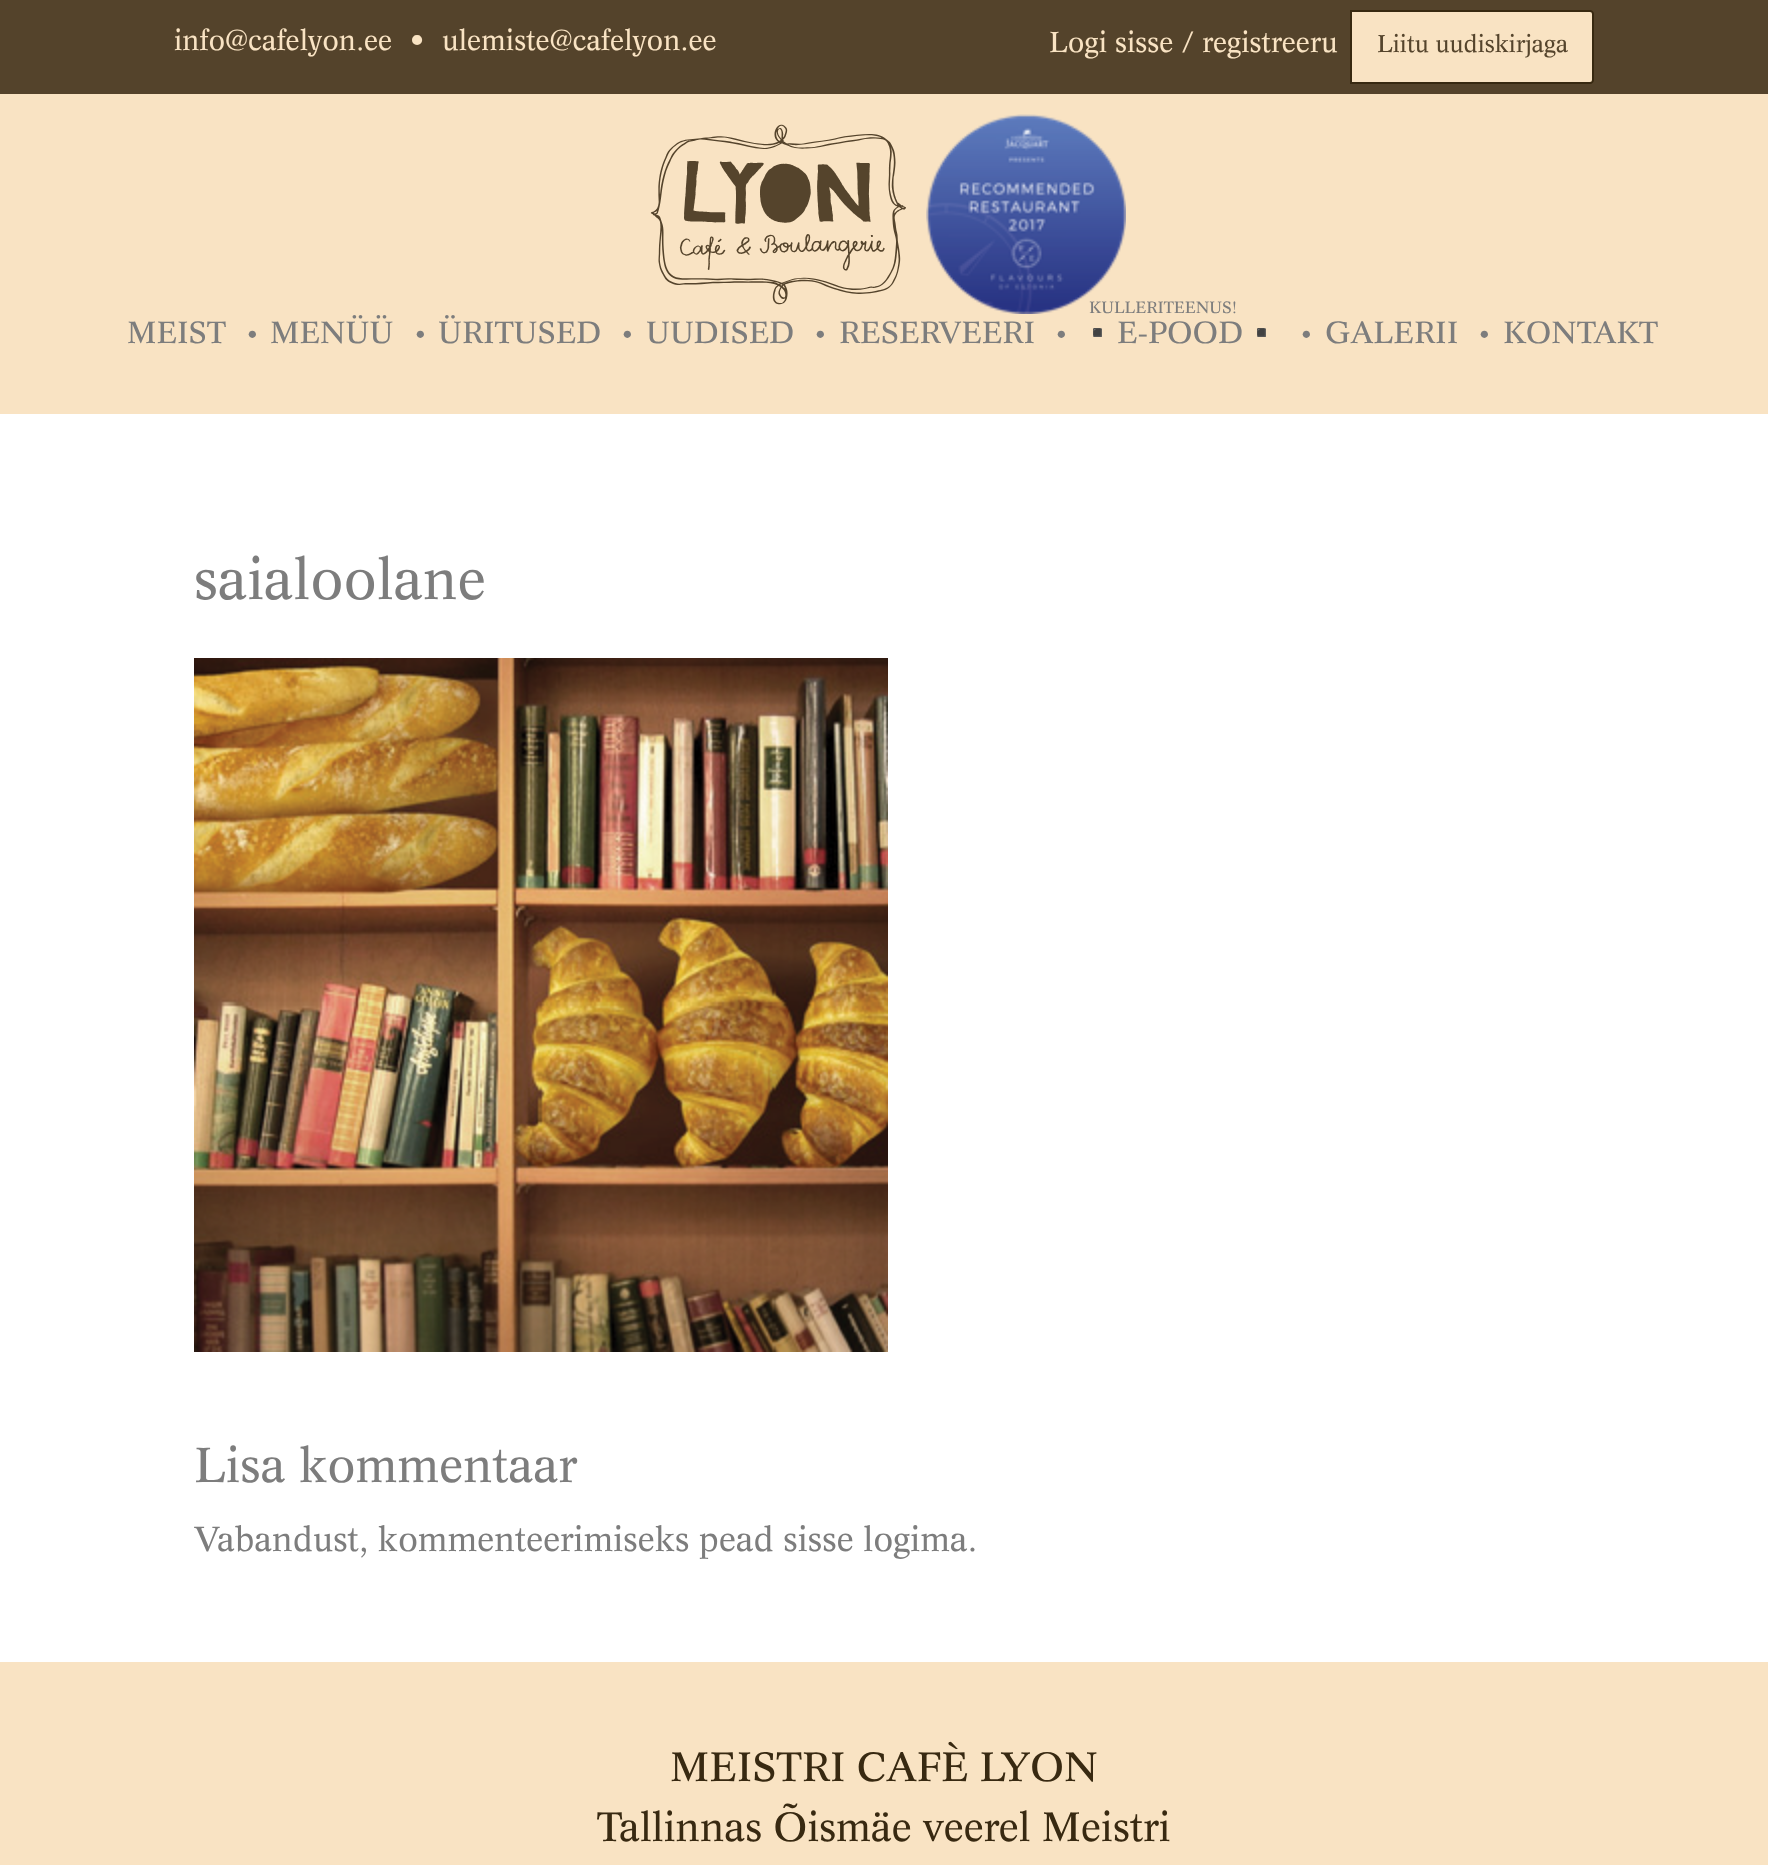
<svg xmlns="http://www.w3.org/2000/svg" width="1768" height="1865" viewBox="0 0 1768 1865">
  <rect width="100%" height="100%" fill="#f9e3c3"/>
  <rect x="0" y="0" width="1768" height="94" fill="#54432b"/>
  <text x="174" y="50" font-family="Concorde" font-size="28.25" fill="#f9e3c3">info@cafelyon.ee</text>
  <text x="410" y="50" font-family="Concorde" font-size="28.25" fill="#f9e3c3">•</text>
  <text x="442" y="50" font-family="Concorde" font-size="28.25" fill="#f9e3c3">ulemiste@cafelyon.ee</text>
  <text x="1049" y="52" font-family="Concorde" font-size="28.25" fill="#f9e3c3">Logi sisse / registreeru</text>
  <path d="M1351 11H1590C1591.5 11 1593 12.5 1593 14V80C1593 81.5 1591.5 83 1590 83H1351Z" fill="#f9e3c3" stroke="#382911" stroke-width="2"/>
  <text x="1377" y="52" font-family="Concorde" font-size="23.75" fill="#55442c">Liitu uudiskirjaga</text>
  <image x="650" y="124" width="256" height="181" href="img1.png"/>
  <image x="926" y="114" width="200" height="200" href="img2.png"/>
  <text x="127" y="343" font-family="Concorde" font-size="30" fill="#7d7d7d">MEIST</text>
  <text x="244" y="353" font-family="Concorde" font-size="60" fill="#7d7d7d">·</text>
  <text x="270" y="343" font-family="Concorde" font-size="30" fill="#7d7d7d">MENÜÜ</text>
  <text x="412" y="353" font-family="Concorde" font-size="60" fill="#7d7d7d">·</text>
  <text x="438" y="343" font-family="Concorde" font-size="30" fill="#7d7d7d">ÜRITUSED</text>
  <text x="619" y="353" font-family="Concorde" font-size="60" fill="#7d7d7d">·</text>
  <text x="646" y="343" font-family="Concorde" font-size="30" fill="#7d7d7d">UUDISED</text>
  <text x="812" y="353" font-family="Concorde" font-size="60" fill="#7d7d7d">·</text>
  <text x="839" y="343" font-family="Concorde" font-size="30" fill="#7d7d7d">RESERVEERI</text>
  <text x="1053" y="353" font-family="Concorde" font-size="60" fill="#7d7d7d">·</text>
  <text x="1089" y="313" font-family="Concorde" font-size="16" fill="#7d7d7d">KULLERITEENUS!</text>
  <text x="1079" y="343" font-family="Noto Color Emoji" font-size="30" fill="#7d7d7d">▪️</text>
  <text x="1117" y="343" font-family="Concorde" font-size="30" fill="#7d7d7d">E-POOD</text>
  <text x="1243" y="343" font-family="Noto Color Emoji" font-size="30" fill="#7d7d7d">▪️</text>
  <text x="1298" y="353" font-family="Concorde" font-size="60" fill="#7d7d7d">·</text>
  <text x="1325" y="343" font-family="Concorde" font-size="30" fill="#7d7d7d">GALERII</text>
  <text x="1476" y="353" font-family="Concorde" font-size="60" fill="#7d7d7d">·</text>
  <text x="1503" y="343" font-family="Concorde" font-size="30" fill="#7d7d7d">KONTAKT</text>
  <rect x="0" y="414" width="1768" height="1248" fill="#ffffff"/>
  <text x="194" y="599" font-family="Concorde" font-size="56.5" fill="#7d7d7d">saialoolane</text>
  <image x="194" y="658" width="694" height="694" href="img3.png"/>
  <text x="194" y="1482" font-family="Concorde" font-size="48" fill="#7d7d7d">Lisa kommentaar</text>
  <text x="194" y="1551" font-family="Concorde" font-size="34" fill="#7d7d7d">Vabandust, kommenteerimiseks pead sisse logima.</text>
  <text x="670" y="1781" font-family="Concorde" font-size="40" fill="#382911">MEISTRI CAFÈ LYON</text>
  <text x="597" y="1841" font-family="Concorde" font-size="40" fill="#382911">Tallinnas Õismäe veerel Meistri</text>
</svg>
